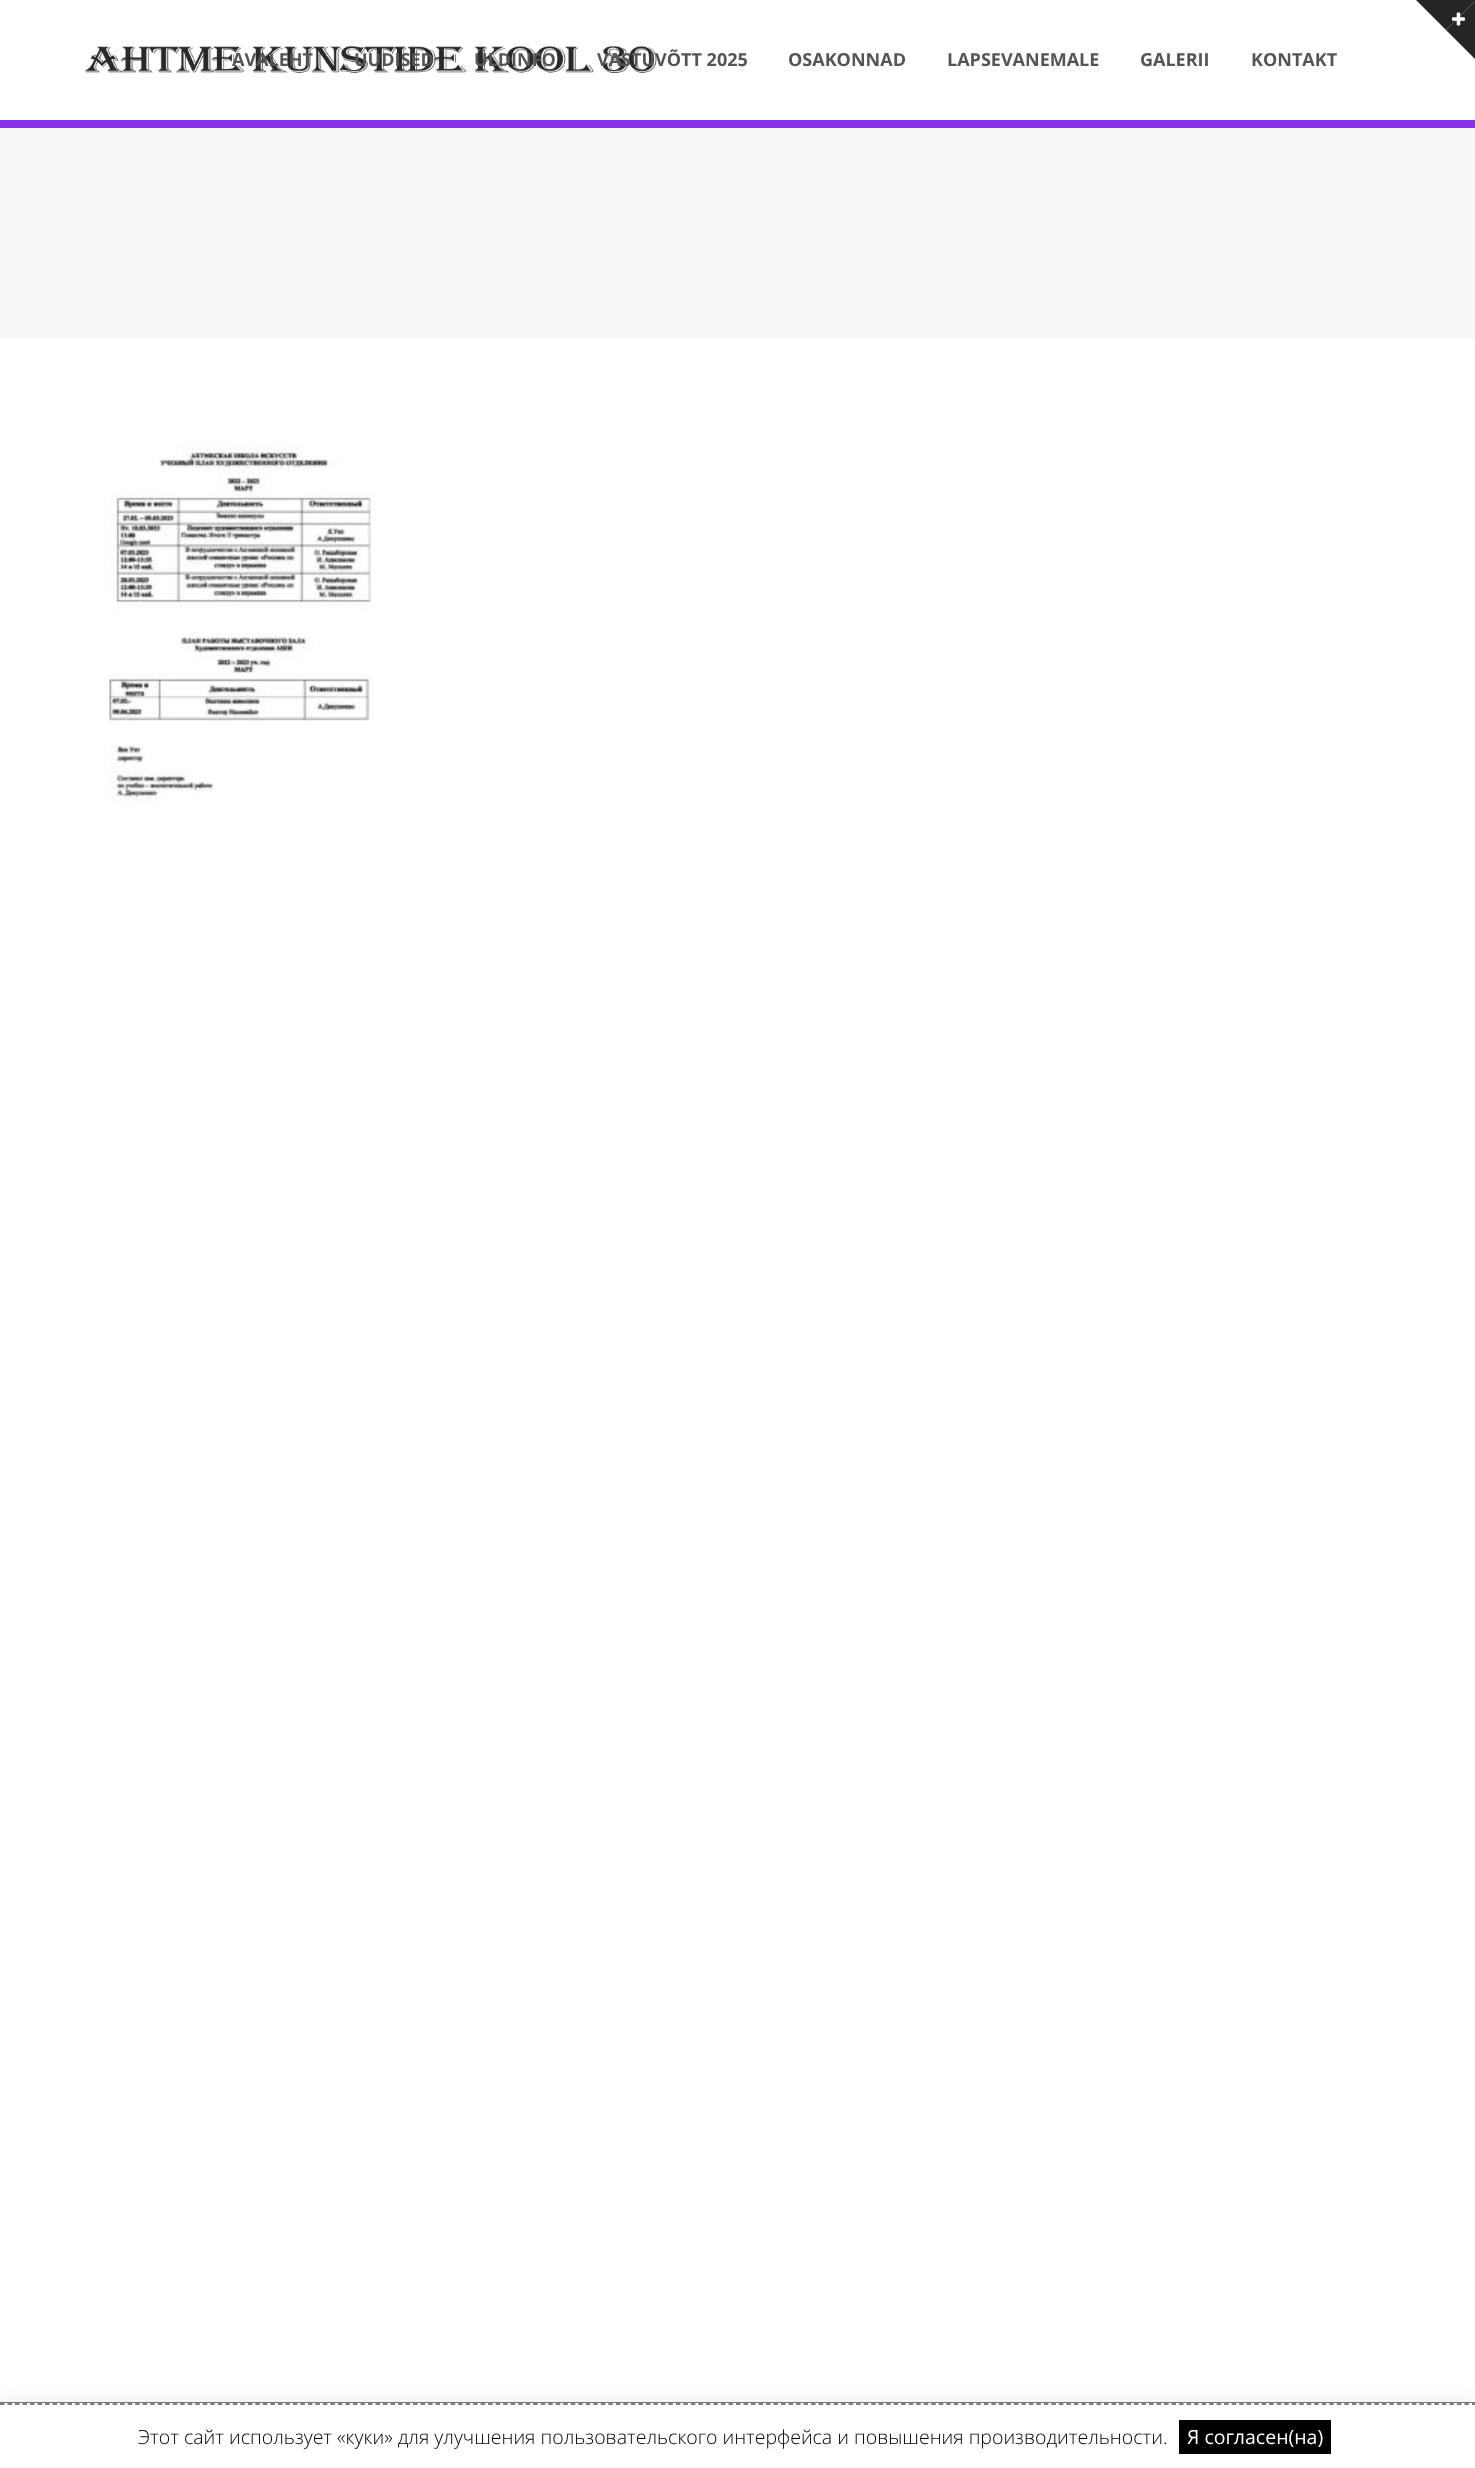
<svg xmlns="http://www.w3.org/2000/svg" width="1475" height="2468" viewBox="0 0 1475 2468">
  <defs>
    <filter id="blur1" x="-50%" y="-200%" width="200%" height="500%"><feGaussianBlur stdDeviation="7.5"/></filter>
  </defs>
  <rect width="100%" height="100%" fill="#ffffff"/>
  <rect x="0" y="120" width="1475" height="8" fill="#8a31ea"/>
  <image x="84" y="45" width="573" height="28" href="img1.png"/>
  <text x="232" y="66" font-family="Open Sans" font-size="18" font-weight="bold" fill="#555555">AVALEHT</text>
  <text x="354" y="66" font-family="Open Sans" font-size="18" font-weight="bold" fill="#555555">UUDISED</text>
  <text x="474" y="66" font-family="Open Sans" font-size="18" font-weight="bold" fill="#555555">ÜLDINFO</text>
  <text x="597" y="66" font-family="Open Sans" font-size="18" font-weight="bold" fill="#555555">VASTUVÕTT 2025</text>
  <text x="788" y="66" font-family="Open Sans" font-size="18" font-weight="bold" fill="#555555">OSAKONNAD</text>
  <text x="947" y="66" font-family="Open Sans" font-size="18" font-weight="bold" fill="#555555">LAPSEVANEMALE</text>
  <text x="1140" y="66" font-family="Open Sans" font-size="18" font-weight="bold" fill="#555555">GALERII</text>
  <text x="1251" y="66" font-family="Open Sans" font-size="18" font-weight="bold" fill="#555555">KONTAKT</text>
  <path d="M1416 0H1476L1446 30Z" fill="#252525"/>
  <path d="M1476 0V60L1446 30Z" fill="#252525"/>
  <image x="1452" y="12" width="13" height="14" href="img2.png"/>
  <rect x="0" y="128" width="1475" height="210" fill="#f7f7f7"/>
  <image x="109" y="445" width="265" height="361" href="img3.png"/>
  <rect x="0" y="2402" width="1475" height="1" fill="#7e618a"/>
  <rect x="0" y="2402" width="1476" height="66" fill="#acabab" fill-opacity="0.3" filter="url(#blur1)"/>
  <rect x="0" y="2403" width="1475" height="65" fill="#ffffff"/>
  <path d="M0 2404H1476" fill="none" stroke="#555555" stroke-width="1.5" stroke-dasharray="4.5 3.01"/>
  <text x="138" y="2444" font-family="Open Sans" font-size="19.5" font-weight="300" fill="#000000">Этот сайт использует «куки» для улучшения пользовательского интерфейса и повышения производительности.</text>
  <rect x="1179" y="2420" width="152" height="34" fill="#000000"/>
  <text x="1187" y="2444" font-family="Open Sans" font-size="19.5" fill="#ffffff">Я согласен(на)</text>
</svg>
